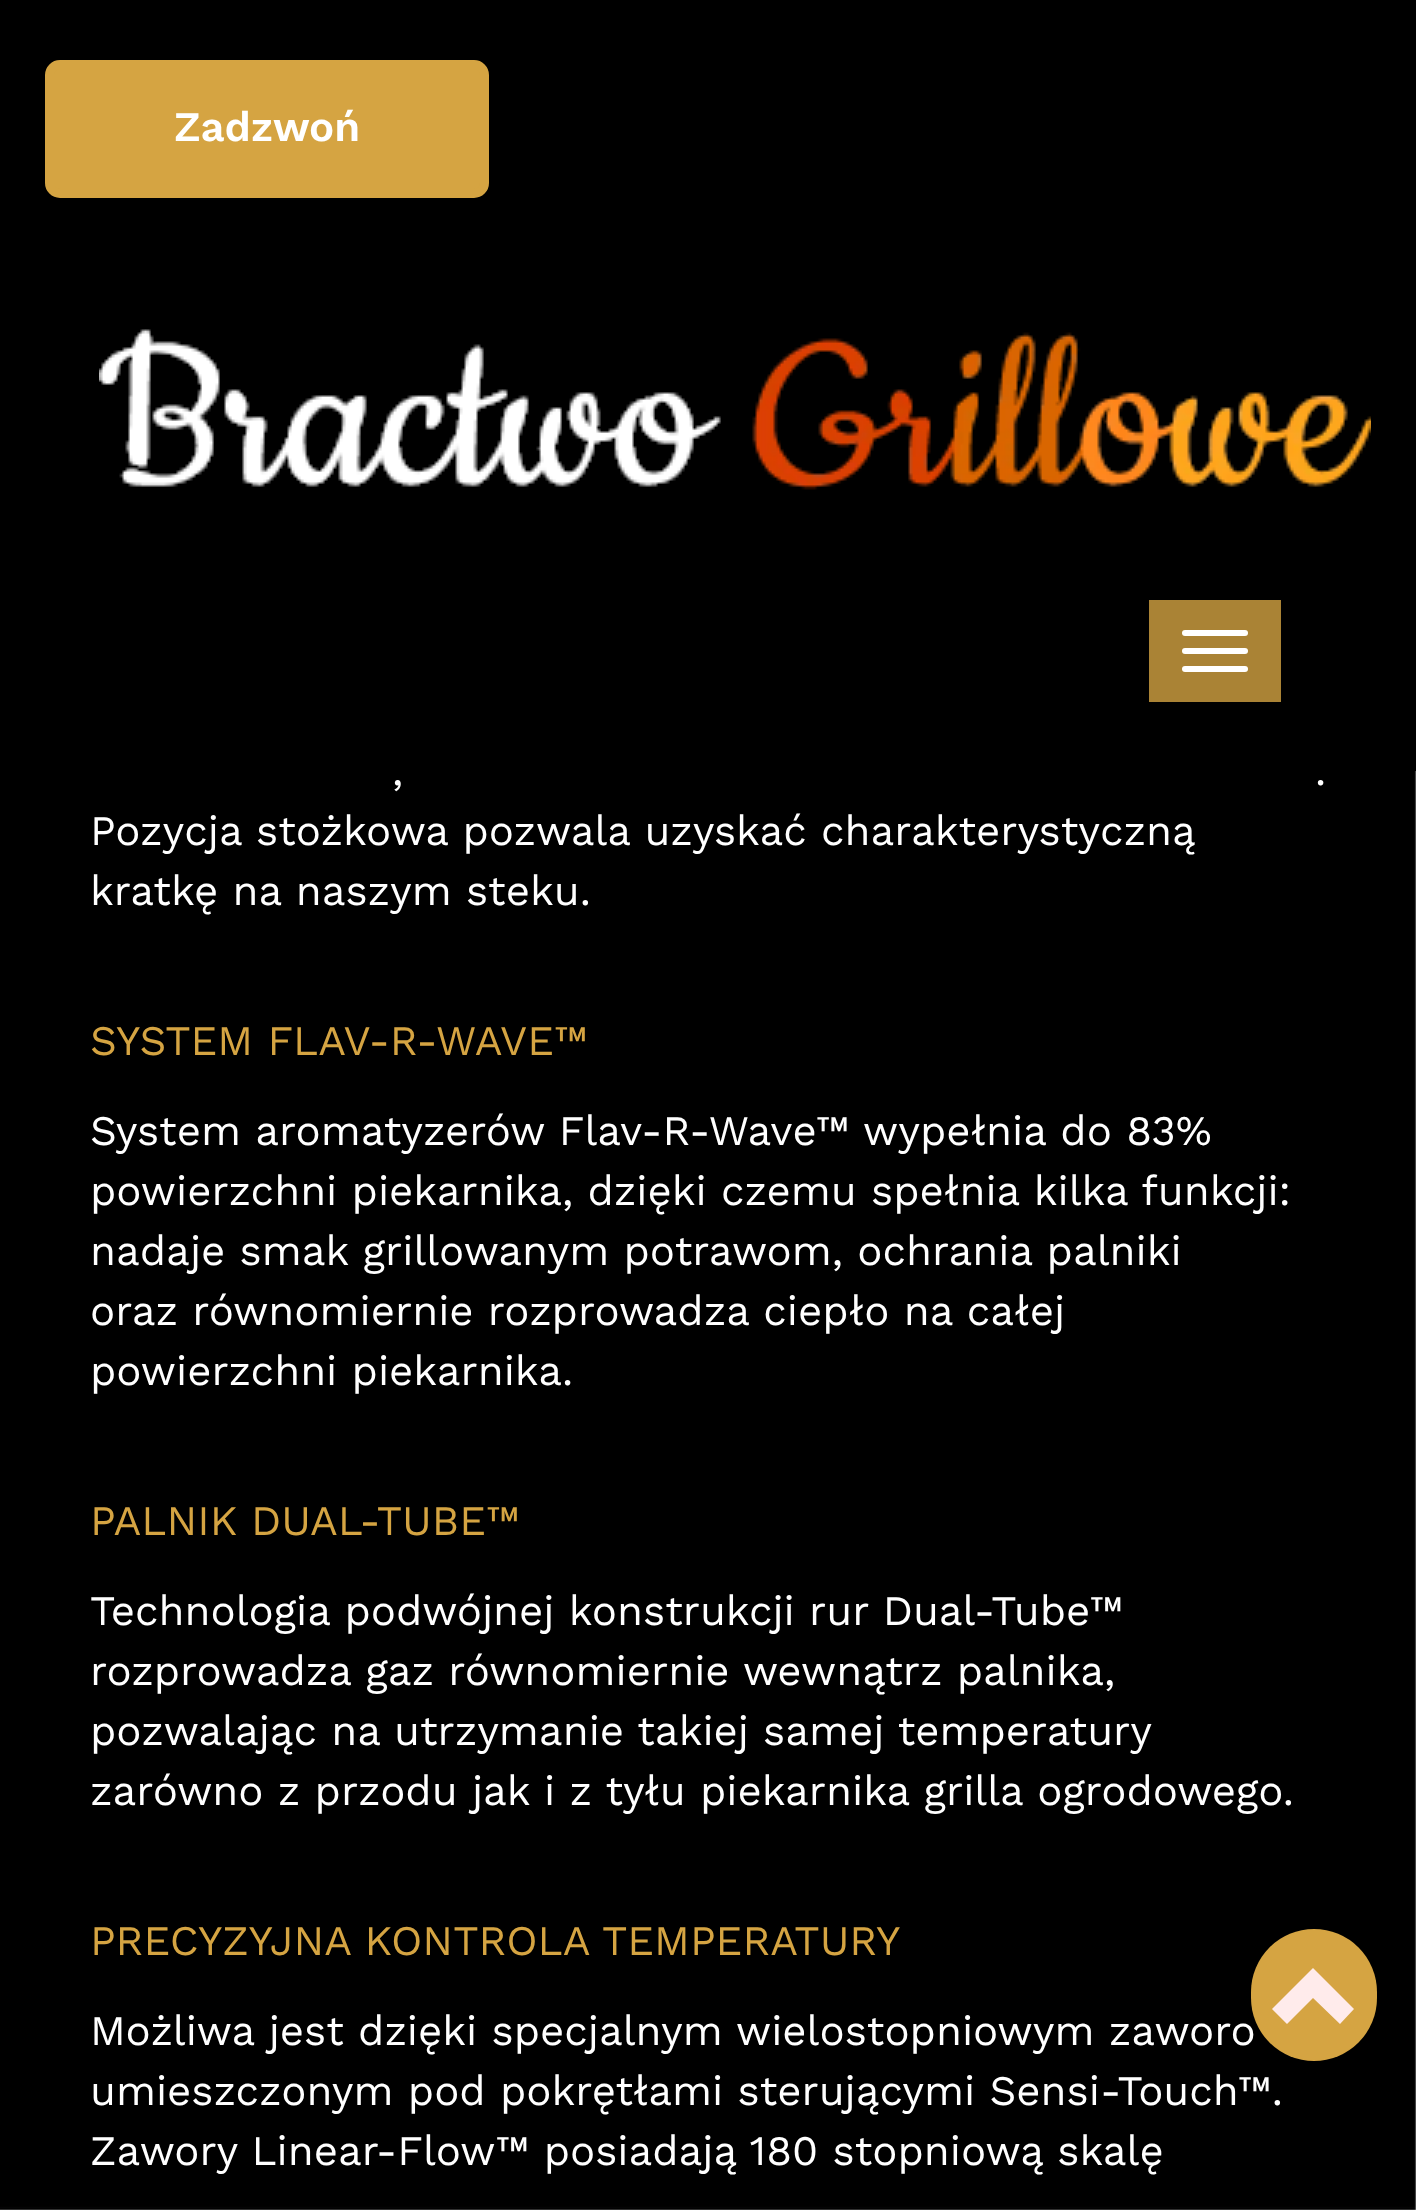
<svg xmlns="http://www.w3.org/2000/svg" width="1416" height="2210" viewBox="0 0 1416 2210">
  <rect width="100%" height="100%" fill="#ffffff"/>
  <rect x="0" y="0" width="1416" height="771" fill="#000000"/>
  <rect x="49.5" y="64.5" width="435" height="129" rx="10.5" fill="#d5a442" stroke="#d5a442" stroke-width="9"/>
  <text x="174" y="141" font-family="Work Sans" font-size="42" font-weight="600" fill="#ffffff">Zadzwoń</text>
  <image x="99" y="329" width="1272" height="161" href="img1.png"/>
  <rect x="1149" y="600" width="132" height="102" fill="#aa8335"/>
  <rect x="1182" y="630" width="66" height="6" rx="3" fill="#ffffff"/>
  <rect x="1182" y="648" width="66" height="6" rx="3" fill="#ffffff"/>
  <rect x="1182" y="666" width="66" height="6" rx="3" fill="#ffffff"/>
  <image x="0" y="771" width="1416" height="1439" href="img2.png"/>
  <text x="392" y="785" font-family="Work Sans" font-size="42" fill="#ffffff">,</text>
  <text x="1315" y="785" font-family="Work Sans" font-size="42" fill="#ffffff">.</text>
  <text x="90" y="845" font-family="Work Sans" font-size="42" fill="#ffffff">Pozycja stożkowa pozwala uzyskać charakterystyczną</text>
  <text x="90" y="905" font-family="Work Sans" font-size="42" fill="#ffffff">kratkę na naszym steku.</text>
  <text x="90" y="1055" font-family="Work Sans" font-size="42" fill="#d5a442">SYSTEM FLAV-R-WAVE™</text>
  <text x="90" y="1145" font-family="Work Sans" font-size="42" fill="#ffffff">System aromatyzerów Flav-R-Wave™ wypełnia do 83%</text>
  <text x="90" y="1205" font-family="Work Sans" font-size="42" fill="#ffffff">powierzchni piekarnika, dzięki czemu spełnia kilka funkcji:</text>
  <text x="90" y="1265" font-family="Work Sans" font-size="42" fill="#ffffff">nadaje smak grillowanym potrawom, ochrania palniki</text>
  <text x="90" y="1325" font-family="Work Sans" font-size="42" fill="#ffffff">oraz równomiernie rozprowadza ciepło na całej</text>
  <text x="90" y="1385" font-family="Work Sans" font-size="42" fill="#ffffff">powierzchni piekarnika.</text>
  <text x="90" y="1535" font-family="Work Sans" font-size="42" fill="#d5a442">PALNIK DUAL-TUBE™</text>
  <text x="90" y="1625" font-family="Work Sans" font-size="42" fill="#ffffff">Technologia podwójnej konstrukcji rur Dual-Tube™</text>
  <text x="90" y="1685" font-family="Work Sans" font-size="42" fill="#ffffff">rozprowadza gaz równomiernie wewnątrz palnika,</text>
  <text x="90" y="1745" word-spacing="-0.25" font-family="Work Sans" font-size="42" fill="#ffffff">pozwalając na utrzymanie takiej samej temperatury</text>
  <text x="90" y="1805" font-family="Work Sans" font-size="42" fill="#ffffff">zarówno z przodu jak i z tyłu piekarnika grilla ogrodowego.</text>
  <text x="90" y="1955" font-family="Work Sans" font-size="42" fill="#d5a442">PRECYZYJNA KONTROLA TEMPERATURY</text>
  <text x="90" y="2045" font-family="Work Sans" font-size="42" fill="#ffffff">Możliwa jest dzięki specjalnym wielostopniowym zaworo</text>
  <text x="90" y="2105" font-family="Work Sans" font-size="42" fill="#ffffff">umieszczonym pod pokrętłami sterującymi Sensi-Touch™.</text>
  <text x="90" y="2165" font-family="Work Sans" font-size="42" fill="#ffffff">Zawory Linear-Flow™ posiadają 180 stopniową skalę</text>
  <rect x="1251" y="1929" width="126" height="132" rx="63" fill="#d5a442"/>
  <path d="M1354 2009L1340 2024L1313 1998L1287 2024L1272 2009L1313 1968Z" fill="#ffebeb"/>
</svg>
